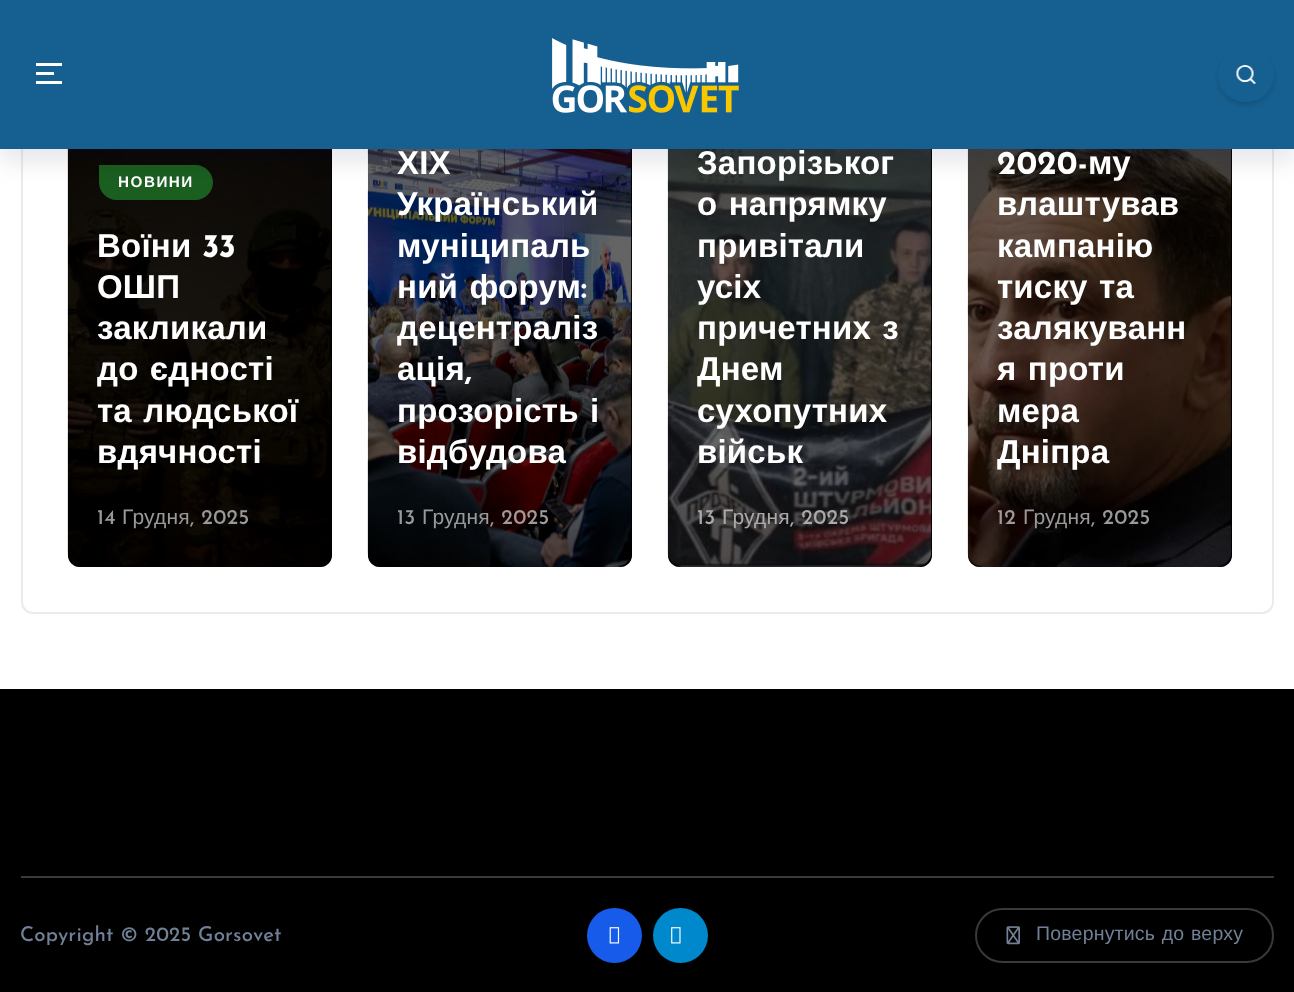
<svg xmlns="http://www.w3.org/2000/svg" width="1294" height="992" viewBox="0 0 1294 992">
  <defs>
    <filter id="blur1" x="-50%" y="-200%" width="200%" height="500%"><feGaussianBlur stdDeviation="12.5"/></filter>
    <filter id="blur2" x="-50%" y="-200%" width="200%" height="500%"><feGaussianBlur stdDeviation="3"/></filter>
  </defs>
  <rect width="100%" height="100%" fill="#ffffff"/>
  <rect x="22" y="-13" width="1251" height="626" rx="11" fill="none" stroke="#ebebeb" stroke-width="2"/>
  <rect x="68" y="117" width="264" height="450" rx="12" fill="#000000"/>
  <image x="67" y="149" width="265" height="418" href="img3.png"/>
  <rect x="68" y="117" width="264" height="450" rx="12" fill="#000000" fill-opacity="0.6"/>
  <path d="M99 165H195.5C205 165 213 173 213 182.5C213 192 205 200 195.5 200H116.5C107 200 99 192 99 182.5Z" fill="#1a5e20"/>
  <rect x="368" y="117" width="264" height="450" rx="12" fill="#000000"/>
  <image x="367" y="149" width="265" height="418" href="img4.png"/>
  <rect x="368" y="117" width="264" height="450" rx="12" fill="#000000" fill-opacity="0.6"/>
  <rect x="668" y="117" width="264" height="450" rx="12" fill="#000000"/>
  <image x="667" y="149" width="265" height="418" href="img5.png"/>
  <rect x="668" y="117" width="264" height="450" rx="12" fill="#000000" fill-opacity="0.6"/>
  <rect x="968" y="117" width="264" height="450" rx="12" fill="#000000"/>
  <image x="967" y="149" width="265" height="418" href="img6.png"/>
  <rect x="968" y="117" width="264" height="450" rx="12" fill="#000000" fill-opacity="0.6"/>
  <rect x="0" y="12" width="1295" height="149" fill="#1b182f" fill-opacity="0.1" filter="url(#blur1)"/>
  <rect x="0" y="0" width="1294" height="149" fill="#166091"/>
  <rect x="36" y="63" width="26" height="3" fill="#ffffff"/>
  <rect x="36" y="72" width="18" height="3" fill="#ffffff"/>
  <rect x="36" y="81" width="26" height="3" fill="#ffffff"/>
  <image x="552" y="38" width="187" height="75" href="img1.png"/>
  <rect x="1218" y="50" width="56" height="55" rx="27.5" fill="#000000" fill-opacity="0.15" filter="url(#blur2)"/>
  <rect x="1218" y="47" width="56" height="55" rx="27.5" fill="#166091"/>
  <image x="1235" y="65" width="21" height="20" href="img2.png"/>
  <text x="118" y="187" font-family="Liberation Sans" font-size="15.25" font-weight="bold" letter-spacing="1.5" fill="#ffffff">НОВИНИ</text>
  <text x="97" y="257" font-family="Liberation Sans" font-size="33" font-weight="bold" letter-spacing="0.2" fill="#ffffff">Воїни</text>
  <text x="202" y="257" font-family="Josefin Sans" font-size="33" font-weight="bold" letter-spacing="0.2" fill="#ffffff">33</text>
  <text x="97" y="298" font-family="Liberation Sans" font-size="33" font-weight="bold" letter-spacing="0.2" fill="#ffffff">ОШП</text>
  <text x="97" y="339" font-family="Liberation Sans" font-size="33" font-weight="bold" letter-spacing="0.2" fill="#ffffff">закликали</text>
  <text x="97" y="380" word-spacing="2" font-family="Liberation Sans" font-size="33" font-weight="bold" letter-spacing="0.2" fill="#ffffff">до єдності</text>
  <text x="97" y="422" word-spacing="2" font-family="Liberation Sans" font-size="33" font-weight="bold" letter-spacing="0.2" fill="#ffffff">та людської</text>
  <text x="97" y="463" font-family="Liberation Sans" font-size="33" font-weight="bold" letter-spacing="0.2" fill="#ffffff">вдячності</text>
  <text x="97" y="524" font-family="Josefin Sans" font-size="21" font-weight="500" letter-spacing="0.2" fill="#999999">14</text>
  <text x="122" y="524" font-family="Liberation Sans" font-size="21" letter-spacing="0.2" fill="#999999">Грудня</text>
  <text x="190" y="524" font-family="Josefin Sans" font-size="21" font-weight="500" letter-spacing="0.2" fill="#999999">, 2025</text>
  <text x="397" y="174" font-family="Liberation Sans" font-size="33" font-weight="bold" letter-spacing="0.2" fill="#ffffff">ХІХ</text>
  <text x="397" y="215" font-family="Liberation Sans" font-size="33" font-weight="bold" letter-spacing="0.2" fill="#ffffff">Український</text>
  <text x="397" y="257" font-family="Liberation Sans" font-size="33" font-weight="bold" letter-spacing="0.2" fill="#ffffff">муніципаль</text>
  <text x="397" y="298" word-spacing="2" font-family="Liberation Sans" font-size="33" font-weight="bold" letter-spacing="0.2" fill="#ffffff">ний форум</text>
  <text x="581" y="298" font-family="Josefin Sans" font-size="33" font-weight="bold" letter-spacing="0.2" fill="#ffffff">:</text>
  <text x="397" y="339" font-family="Liberation Sans" font-size="33" font-weight="bold" letter-spacing="0.2" fill="#ffffff">децентраліз</text>
  <text x="397" y="380" font-family="Liberation Sans" font-size="33" font-weight="bold" letter-spacing="0.2" fill="#ffffff">ація</text>
  <text x="465" y="380" font-family="Josefin Sans" font-size="33" font-weight="bold" letter-spacing="0.2" fill="#ffffff">,</text>
  <text x="397" y="422" word-spacing="2" font-family="Liberation Sans" font-size="33" font-weight="bold" letter-spacing="0.2" fill="#ffffff">прозорість і</text>
  <text x="397" y="463" font-family="Liberation Sans" font-size="33" font-weight="bold" letter-spacing="0.2" fill="#ffffff">відбудова</text>
  <text x="397" y="524" font-family="Josefin Sans" font-size="21" font-weight="500" letter-spacing="0.2" fill="#999999">13</text>
  <text x="422" y="524" font-family="Liberation Sans" font-size="21" letter-spacing="0.2" fill="#999999">Грудня</text>
  <text x="490" y="524" font-family="Josefin Sans" font-size="21" font-weight="500" letter-spacing="0.2" fill="#a19999">, 2025</text>
  <text x="697" y="174" font-family="Liberation Sans" font-size="33" font-weight="bold" letter-spacing="0.2" fill="#ffffff">Запорізьког</text>
  <text x="697" y="215" word-spacing="2" font-family="Liberation Sans" font-size="33" font-weight="bold" letter-spacing="0.2" fill="#ffffff">о напрямку</text>
  <text x="697" y="257" font-family="Liberation Sans" font-size="33" font-weight="bold" letter-spacing="0.2" fill="#ffffff">привітали</text>
  <text x="697" y="298" font-family="Liberation Sans" font-size="33" font-weight="bold" letter-spacing="0.2" fill="#ffffff">усіх</text>
  <text x="697" y="339" word-spacing="2" font-family="Liberation Sans" font-size="33" font-weight="bold" letter-spacing="0.2" fill="#ffffff">причетних з</text>
  <text x="697" y="380" font-family="Liberation Sans" font-size="33" font-weight="bold" letter-spacing="0.2" fill="#ffffff">Днем</text>
  <text x="697" y="422" font-family="Liberation Sans" font-size="33" font-weight="bold" letter-spacing="0.2" fill="#ffffff">сухопутних</text>
  <text x="697" y="463" font-family="Liberation Sans" font-size="33" font-weight="bold" letter-spacing="0.2" fill="#ffffff">військ</text>
  <text x="697" y="524" font-family="Josefin Sans" font-size="21" font-weight="500" letter-spacing="0.2" fill="#abaaab">13</text>
  <text x="722" y="524" font-family="Liberation Sans" font-size="21" letter-spacing="0.2" fill="#abaaab">Грудня</text>
  <text x="790" y="524" font-family="Josefin Sans" font-size="21" font-weight="500" letter-spacing="0.2" fill="#abaaab">, 2025</text>
  <text x="997" y="174" font-family="Josefin Sans" font-size="33" font-weight="bold" letter-spacing="0.2" fill="#ffffff">2020-</text>
  <text x="1088" y="174" font-family="Liberation Sans" font-size="33" font-weight="bold" letter-spacing="0.2" fill="#ffffff">му</text>
  <text x="997" y="215" font-family="Liberation Sans" font-size="33" font-weight="bold" letter-spacing="0.2" fill="#ffffff">влаштував</text>
  <text x="997" y="257" font-family="Liberation Sans" font-size="33" font-weight="bold" letter-spacing="0.2" fill="#ffffff">кампанію</text>
  <text x="997" y="298" word-spacing="2" font-family="Liberation Sans" font-size="33" font-weight="bold" letter-spacing="0.2" fill="#ffffff">тиску та</text>
  <text x="997" y="339" font-family="Liberation Sans" font-size="33" font-weight="bold" letter-spacing="0.2" fill="#ffffff">залякуванн</text>
  <text x="997" y="380" word-spacing="2" font-family="Liberation Sans" font-size="33" font-weight="bold" letter-spacing="0.2" fill="#ffffff">я проти</text>
  <text x="997" y="422" font-family="Liberation Sans" font-size="33" font-weight="bold" letter-spacing="0.2" fill="#ffffff">мера</text>
  <text x="997" y="463" font-family="Liberation Sans" font-size="33" font-weight="bold" letter-spacing="0.2" fill="#ffffff">Дніпра</text>
  <text x="997" y="524" font-family="Josefin Sans" font-size="21" font-weight="500" letter-spacing="0.2" fill="#a19999">12</text>
  <text x="1023" y="524" font-family="Liberation Sans" font-size="21" letter-spacing="0.2" fill="#999999">Грудня</text>
  <text x="1091" y="524" font-family="Josefin Sans" font-size="21" font-weight="500" letter-spacing="0.2" fill="#999999">, 2025</text>
  <rect x="0" y="689" width="1294" height="303" fill="#000000"/>
  <rect x="21" y="876" width="1253" height="2" fill="#393939"/>
  <text x="20" y="941" font-family="Josefin Sans" font-size="20.4" font-weight="500" letter-spacing="0.2" fill="#718096">Copyright © 2025 Gorsovet</text>
  <circle cx="614.5" cy="935.5" r="27.5" fill="#175beb"/>
  <image x="609" y="927" width="11" height="17" href="img7.png"/>
  <circle cx="680.5" cy="935.5" r="27.5" fill="#0088cc"/>
  <image x="671" y="927" width="10" height="17" href="img8.png"/>
  <rect x="976" y="909" width="297" height="53" rx="26.5" fill="none" stroke="#393939" stroke-width="2"/>
  <image x="1006" y="926" width="14" height="19" href="img9.png"/>
  <text x="1036" y="940" word-spacing="1" font-family="Liberation Sans" font-size="19.5" letter-spacing="0.2" fill="#718096">Повернутись до верху</text>
</svg>
